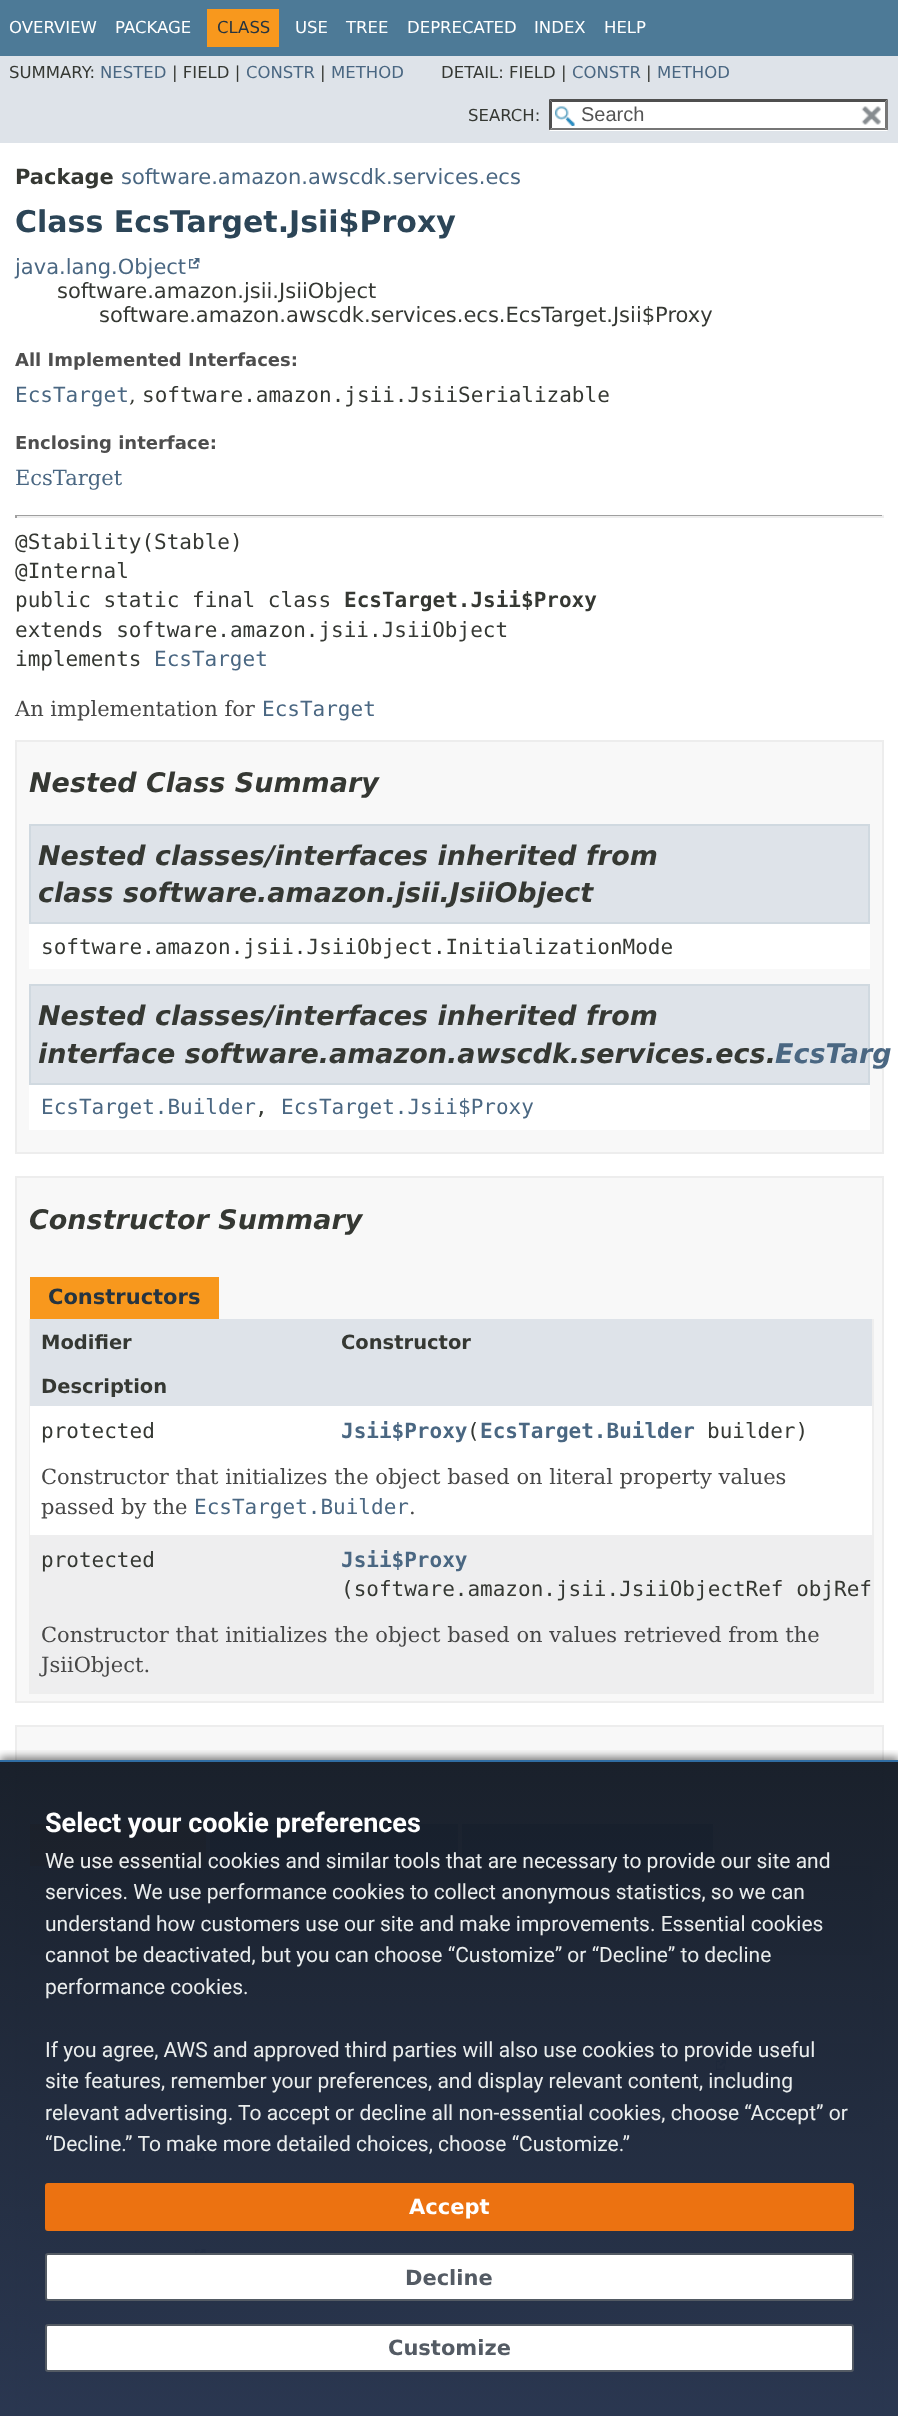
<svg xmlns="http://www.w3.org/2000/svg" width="898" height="2416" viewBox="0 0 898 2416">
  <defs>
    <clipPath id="clip1"><rect x="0" y="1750" width="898" height="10"/></clipPath>
    <filter id="blur1" x="-50%" y="-200%" width="200%" height="500%"><feGaussianBlur stdDeviation="4"/></filter>
    <linearGradient id="g1" gradientUnits="userSpaceOnUse" x1="449" y1="1761" x2="449" y2="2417"><stop offset="0" stop-color="#151c27" stop-opacity="0.98"/><stop offset="1" stop-color="#26334d" stop-opacity="0.98"/></linearGradient>
  </defs>
  <rect width="100%" height="100%" fill="#ffffff"/>
  <rect x="0" y="0" width="898" height="56" fill="#4d7a97"/>
  <text x="9" y="33" font-family="DejaVu Sans" font-size="16.5" fill="#ffffff">OVERVIEW</text>
  <text x="115" y="33" font-family="DejaVu Sans" font-size="16.5" fill="#ffffff">PACKAGE</text>
  <rect x="207" y="9" width="72" height="38" fill="#f8981d"/>
  <text x="217" y="33" font-family="DejaVu Sans" font-size="16.5" fill="#253441">CLASS</text>
  <text x="295" y="33" font-family="DejaVu Sans" font-size="16.5" fill="#ffffff">USE</text>
  <text x="346" y="33" font-family="DejaVu Sans" font-size="16.5" fill="#ffffff">TREE</text>
  <text x="407" y="33" font-family="DejaVu Sans" font-size="16.5" fill="#ffffff">DEPRECATED</text>
  <text x="534" y="33" font-family="DejaVu Sans" font-size="16.5" fill="#ffffff">INDEX</text>
  <text x="604" y="33" font-family="DejaVu Sans" font-size="16.5" fill="#ffffff">HELP</text>
  <rect x="0" y="56" width="898" height="87" fill="#dee3e9"/>
  <text x="9" y="78" font-family="DejaVu Sans" font-size="16.5" fill="#353833">SUMMARY:</text>
  <text x="100" y="78" font-family="DejaVu Sans" font-size="16.5" fill="#4a6782">NESTED</text>
  <text x="172" y="78" font-family="DejaVu Sans" font-size="16.5" fill="#353833">| FIELD |</text>
  <text x="246" y="78" font-family="DejaVu Sans" font-size="16.5" fill="#4a6782">CONSTR</text>
  <text x="320" y="78" font-family="DejaVu Sans" font-size="16.5" fill="#353833">|</text>
  <text x="331" y="78" font-family="DejaVu Sans" font-size="16.5" fill="#4a6782">METHOD</text>
  <text x="441" y="78" font-family="DejaVu Sans" font-size="16.5" fill="#353833">DETAIL: FIELD |</text>
  <text x="572" y="78" font-family="DejaVu Sans" font-size="16.5" fill="#4a6782">CONSTR</text>
  <text x="646" y="78" font-family="DejaVu Sans" font-size="16.5" fill="#353833">|</text>
  <text x="657" y="78" font-family="DejaVu Sans" font-size="16.5" fill="#4a6782">METHOD</text>
  <text x="468" y="121" font-family="DejaVu Sans" font-size="16.5" fill="#353833">SEARCH:</text>
  <rect x="549" y="99" width="339" height="32" fill="#ffffff"/>
  <image x="555" y="106" width="20" height="20" href="img1.png"/>
  <path d="M549 99H888L885 102H552Z" fill="#4f4f4f"/>
  <path d="M888 99V130.5L885 127.5V102Z" fill="#767676"/>
  <path d="M888 130H549L552 128H885Z" fill="#767676"/>
  <path d="M549 130.5V99L552 102V127.5Z" fill="#4f4f4f"/>
  <text x="581" y="121" font-family="Liberation Sans" font-size="20" fill="#545454">Search</text>
  <image x="861" y="106" width="20" height="19" href="img2.png"/>
  <text x="15" y="184" font-family="DejaVu Sans" font-size="21" font-weight="bold" fill="#353833">Package</text>
  <text x="121" y="184" font-family="DejaVu Sans" font-size="21" fill="#4a6782">software.amazon.awscdk.services.ecs</text>
  <text x="15" y="232" font-family="DejaVu Sans" font-size="30" font-weight="bold" fill="#2c4557">Class EcsTarget.Jsii$Proxy</text>
  <text x="15" y="274" font-family="DejaVu Sans" font-size="21" fill="#4a6782">java.lang.Object</text>
  <image x="189" y="258" width="11" height="11" href="img3.png"/>
  <text x="57" y="298" font-family="DejaVu Sans" font-size="21" fill="#353833">software.amazon.jsii.JsiiObject</text>
  <text x="99" y="322" font-family="DejaVu Sans" font-size="21" fill="#353833">software.amazon.awscdk.services.ecs.EcsTarget.Jsii$Proxy</text>
  <text x="15" y="366" font-family="DejaVu Sans" font-size="18" font-weight="bold" fill="#4e4e4e">All Implemented Interfaces:</text>
  <text x="15" y="402" font-family="DejaVu Sans Mono" font-size="21" fill="#4a6782">EcsTarget</text>
  <text x="129" y="402" font-family="DejaVu Serif" font-size="21" fill="#353833">,</text>
  <text x="142" y="402" font-family="DejaVu Sans Mono" font-size="21" fill="#353833">software.amazon.jsii.JsiiSerializable</text>
  <text x="15" y="449" font-family="DejaVu Sans" font-size="18" font-weight="bold" fill="#4e4e4e">Enclosing interface:</text>
  <text x="15" y="485" font-family="DejaVu Serif" font-size="21" fill="#4a6782">EcsTarget</text>
  <rect x="15" y="515" width="869" height="1" fill="#9f9f9f"/>
  <rect x="882" y="515" width="2" height="3" fill="#eeeeee"/>
  <rect x="15" y="516" width="869" height="2" fill="#eeeeee"/>
  <rect x="15" y="515" width="2" height="3" fill="#9f9f9f"/>
  <text x="15" y="549" font-family="DejaVu Sans Mono" font-size="21" fill="#353833">@Stability(Stable)</text>
  <text x="15" y="578" font-family="DejaVu Sans Mono" font-size="21" fill="#353833">@Internal</text>
  <text x="15" y="607" font-family="DejaVu Sans Mono" font-size="21" fill="#353833">public static final class</text>
  <text x="344" y="607" font-family="DejaVu Sans Mono" font-size="21" font-weight="bold" fill="#353833">EcsTarget.Jsii$Proxy</text>
  <text x="15" y="637" font-family="DejaVu Sans Mono" font-size="21" fill="#353833">extends software.amazon.jsii.JsiiObject</text>
  <text x="15" y="666" font-family="DejaVu Sans Mono" font-size="21" fill="#353833">implements</text>
  <text x="154" y="666" font-family="DejaVu Sans Mono" font-size="21" fill="#4a6782">EcsTarget</text>
  <text x="15" y="716" font-family="DejaVu Serif" font-size="21" fill="#474747">An implementation for</text>
  <text x="262" y="716" font-family="DejaVu Sans Mono" font-size="21" fill="#4a6782">EcsTarget</text>
  <rect x="16" y="741" width="867" height="412" fill="#f8f8f8" stroke="#ededed" stroke-width="2"/>
  <text x="29" y="792" font-family="DejaVu Sans" font-size="27" font-weight="bold" font-style="italic" fill="#353833">Nested Class Summary</text>
  <rect x="29" y="924" width="841" height="45" fill="#ffffff"/>
  <rect x="30" y="825" width="839" height="98" fill="#dee3e9" stroke="#d0d9e0" stroke-width="2"/>
  <text x="38" y="865" font-family="DejaVu Sans" font-size="27" font-weight="bold" font-style="italic" fill="#353833">Nested classes/interfaces inherited from</text>
  <text x="38" y="902" font-family="DejaVu Sans" font-size="27" font-weight="bold" font-style="italic" fill="#353833">class software.amazon.jsii.JsiiObject</text>
  <text x="41" y="954" font-family="DejaVu Sans Mono" font-size="21" fill="#353833">software.amazon.jsii.JsiiObject.InitializationMode</text>
  <rect x="29" y="1085" width="841" height="45" fill="#ffffff"/>
  <rect x="30" y="985" width="839" height="99" fill="#dee3e9" stroke="#d0d9e0" stroke-width="2"/>
  <text x="38" y="1025" font-family="DejaVu Sans" font-size="27" font-weight="bold" font-style="italic" fill="#353833">Nested classes/interfaces inherited from</text>
  <text x="38" y="1063" font-family="DejaVu Sans" font-size="27" font-weight="bold" font-style="italic" fill="#353833">interface software.amazon.awscdk.services.ecs.</text>
  <text x="775" y="1063" font-family="DejaVu Sans" font-size="27" font-weight="bold" font-style="italic" fill="#4a6782">EcsTarg</text>
  <text x="41" y="1114" font-family="DejaVu Sans Mono" font-size="21" fill="#4a6782">EcsTarget.Builder</text>
  <text x="255" y="1114" font-family="DejaVu Sans Mono" font-size="21" fill="#353833">,</text>
  <text x="281" y="1114" font-family="DejaVu Sans Mono" font-size="21" fill="#4a6782">EcsTarget.Jsii$Proxy</text>
  <rect x="16" y="1177" width="867" height="525" fill="#f8f8f8" stroke="#ededed" stroke-width="2"/>
  <text x="29" y="1229" font-family="DejaVu Sans" font-size="27" font-weight="bold" font-style="italic" fill="#353833">Constructor Summary</text>
  <rect x="30" y="1277" width="189" height="42" fill="#f8981d"/>
  <text x="48" y="1304" font-family="DejaVu Sans" font-size="21" font-weight="bold" fill="#253441">Constructors</text>
  <rect x="872" y="1319" width="2" height="375" fill="#eeeeee"/>
  <rect x="29" y="1692" width="844" height="2" fill="#eeeeee"/>
  <rect x="29" y="1319" width="2" height="375" fill="#eeeeee"/>
  <rect x="30" y="1319" width="842" height="43" fill="#dee3e9"/>
  <text x="41" y="1349" font-family="DejaVu Sans" font-size="19.5" font-weight="bold" fill="#353833">Modifier</text>
  <text x="341" y="1349" font-family="DejaVu Sans" font-size="19.5" font-weight="bold" fill="#353833">Constructor</text>
  <rect x="30" y="1362" width="842" height="44" fill="#dee3e9"/>
  <text x="41" y="1393" font-family="DejaVu Sans" font-size="19.5" font-weight="bold" fill="#353833">Description</text>
  <rect x="30" y="1406" width="842" height="46" fill="#ffffff"/>
  <text x="41" y="1438" font-family="DejaVu Sans Mono" font-size="21" fill="#353833">protected</text>
  <text x="341" y="1438" font-family="DejaVu Sans Mono" font-size="21" font-weight="bold" fill="#4a6782">Jsii$Proxy EcsTarget.Builder</text>
  <text x="707" y="1438" font-family="DejaVu Sans Mono" font-size="21" fill="#353833">builder)</text>
  <text x="467" y="1438" font-family="DejaVu Sans Mono" font-size="21" fill="#353833">(</text>
  <rect x="30" y="1452" width="842" height="83" fill="#ffffff"/>
  <text x="41" y="1484" font-family="DejaVu Serif" font-size="21" fill="#474747">Constructor that initializes the object based on literal property values</text>
  <text x="41" y="1514" font-family="DejaVu Serif" font-size="21" fill="#474747">passed by the</text>
  <text x="194" y="1514" font-family="DejaVu Sans Mono" font-size="21" fill="#4a6782">EcsTarget.Builder</text>
  <text x="409" y="1514" font-family="DejaVu Serif" font-size="21" fill="#474747">.</text>
  <rect x="31" y="1535" width="841" height="75" fill="#eeeeef"/>
  <text x="41" y="1567" font-family="DejaVu Sans Mono" font-size="21" fill="#353833">protected</text>
  <text x="341" y="1567" font-family="DejaVu Sans Mono" font-size="21" font-weight="bold" fill="#4a6782">Jsii$Proxy</text>
  <text x="341" y="1596" font-family="DejaVu Sans Mono" font-size="21" fill="#353833">(software.amazon.jsii.JsiiObjectRef objRef</text>
  <rect x="31" y="1610" width="841" height="82" fill="#eeeeef"/>
  <text x="41" y="1642" font-family="DejaVu Serif" font-size="21" fill="#474747">Constructor that initializes the object based on values retrieved from the</text>
  <text x="41" y="1672" font-family="DejaVu Serif" font-size="21" fill="#474747">JsiiObject.</text>
  <rect x="16" y="1726" width="867" height="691" fill="#f8f8f8" stroke="#ededed" stroke-width="2"/>
  <rect x="30" y="1824" width="176" height="42" fill="#f8981d"/>
  <rect x="210" y="1824" width="248" height="42" fill="#4d7a97"/>
  <rect x="462" y="1824" width="251" height="42" fill="#4d7a97"/>
  <rect x="872" y="1866" width="2" height="550" fill="#eeeeee"/>
  <rect x="29" y="1866" width="1" height="550" fill="#eeeeee"/>
  <rect x="30" y="1866" width="842" height="44" fill="#dee3e9"/>
  <rect x="30" y="1910" width="842" height="45" fill="#dee3e9"/>
  <rect x="30" y="1955" width="842" height="45" fill="#ffffff"/>
  <rect x="30" y="2000" width="842" height="43" fill="#ffffff"/>
  <rect x="30" y="2043" width="842" height="47" fill="#eeeeef"/>
  <image x="716" y="2060" width="10" height="10" href="img4.png"/>
  <rect x="30" y="2090" width="842" height="43" fill="#eeeeef"/>
  <rect x="30" y="2133" width="842" height="47" fill="#ffffff"/>
  <image x="195" y="2150" width="11" height="10" href="img5.png"/>
  <rect x="30" y="2180" width="842" height="52" fill="#ffffff"/>
  <rect x="30" y="2232" width="842" height="47" fill="#eeeeef"/>
  <image x="195" y="2249" width="11" height="4" href="img6.png"/>
  <rect x="30" y="2279" width="842" height="54" fill="#eeeeef"/>
  <rect x="30" y="2333" width="842" height="45" fill="#ffffff"/>
  <rect x="30" y="2378" width="842" height="38" fill="#ffffff"/>
  <g clip-path="url(#clip1)">
    <rect x="0" y="1757" width="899" height="657" fill="#000000" fill-opacity="0.5" filter="url(#blur1)"/>
  </g>
  <rect x="0" y="1762" width="898" height="654" fill="url(#g1)"/>
  <rect x="0" y="1760" width="898" height="2" fill="#306da3"/>
  <text x="45" y="1832" font-family="Roboto" font-size="27" font-weight="bold" fill="#ffffff">Select your cookie preferences</text>
  <text x="45" y="1868" font-family="Roboto" font-size="21" fill="#eaeded">We use essential cookies and similar tools that are necessary to provide our site and</text>
  <text x="45" y="1899" font-family="Roboto" font-size="21" fill="#eaeded">services. We use performance cookies to collect anonymous statistics, so we can</text>
  <text x="45" y="1931" font-family="Roboto" font-size="21" fill="#eaeded">understand how customers use our site and make improvements. Essential cookies</text>
  <text x="45" y="1962" font-family="Roboto" font-size="21" fill="#eaeded">cannot be deactivated, but you can choose “Customize” or “Decline” to decline</text>
  <text x="45" y="1994" font-family="Roboto" font-size="21" fill="#eaeded">performance cookies.</text>
  <text x="45" y="2057" font-family="Roboto" font-size="21" fill="#eaeded">If you agree, AWS and approved third parties will also use cookies to provide useful</text>
  <text x="45" y="2088" font-family="Roboto" font-size="21" fill="#eaeded">site features, remember your preferences, and display relevant content, including</text>
  <text x="45" y="2120" font-family="Roboto" font-size="21" fill="#eaeded">relevant advertising. To accept or decline all non-essential cookies, choose “Accept” or</text>
  <text x="45" y="2151" font-family="Roboto" font-size="21" fill="#eaeded">“Decline.” To make more detailed choices, choose “Customize.”</text>
  <rect x="46" y="2184" width="807" height="46" rx="2" fill="#ec7211" stroke="#ec7211" stroke-width="2"/>
  <text x="409" y="2214" font-family="DejaVu Sans" font-size="21" font-weight="bold" fill="#ffffff">Accept</text>
  <rect x="46" y="2254" width="807" height="46" rx="2" fill="#ffffff" stroke="#545b64" stroke-width="2"/>
  <text x="405" y="2285" font-family="DejaVu Sans" font-size="21" font-weight="bold" fill="#545b64">Decline</text>
  <rect x="46" y="2325" width="807" height="46" rx="2" fill="#ffffff" stroke="#545b64" stroke-width="2"/>
  <text x="388" y="2355" font-family="DejaVu Sans" font-size="21" font-weight="bold" fill="#545b64">Customize</text>
</svg>
